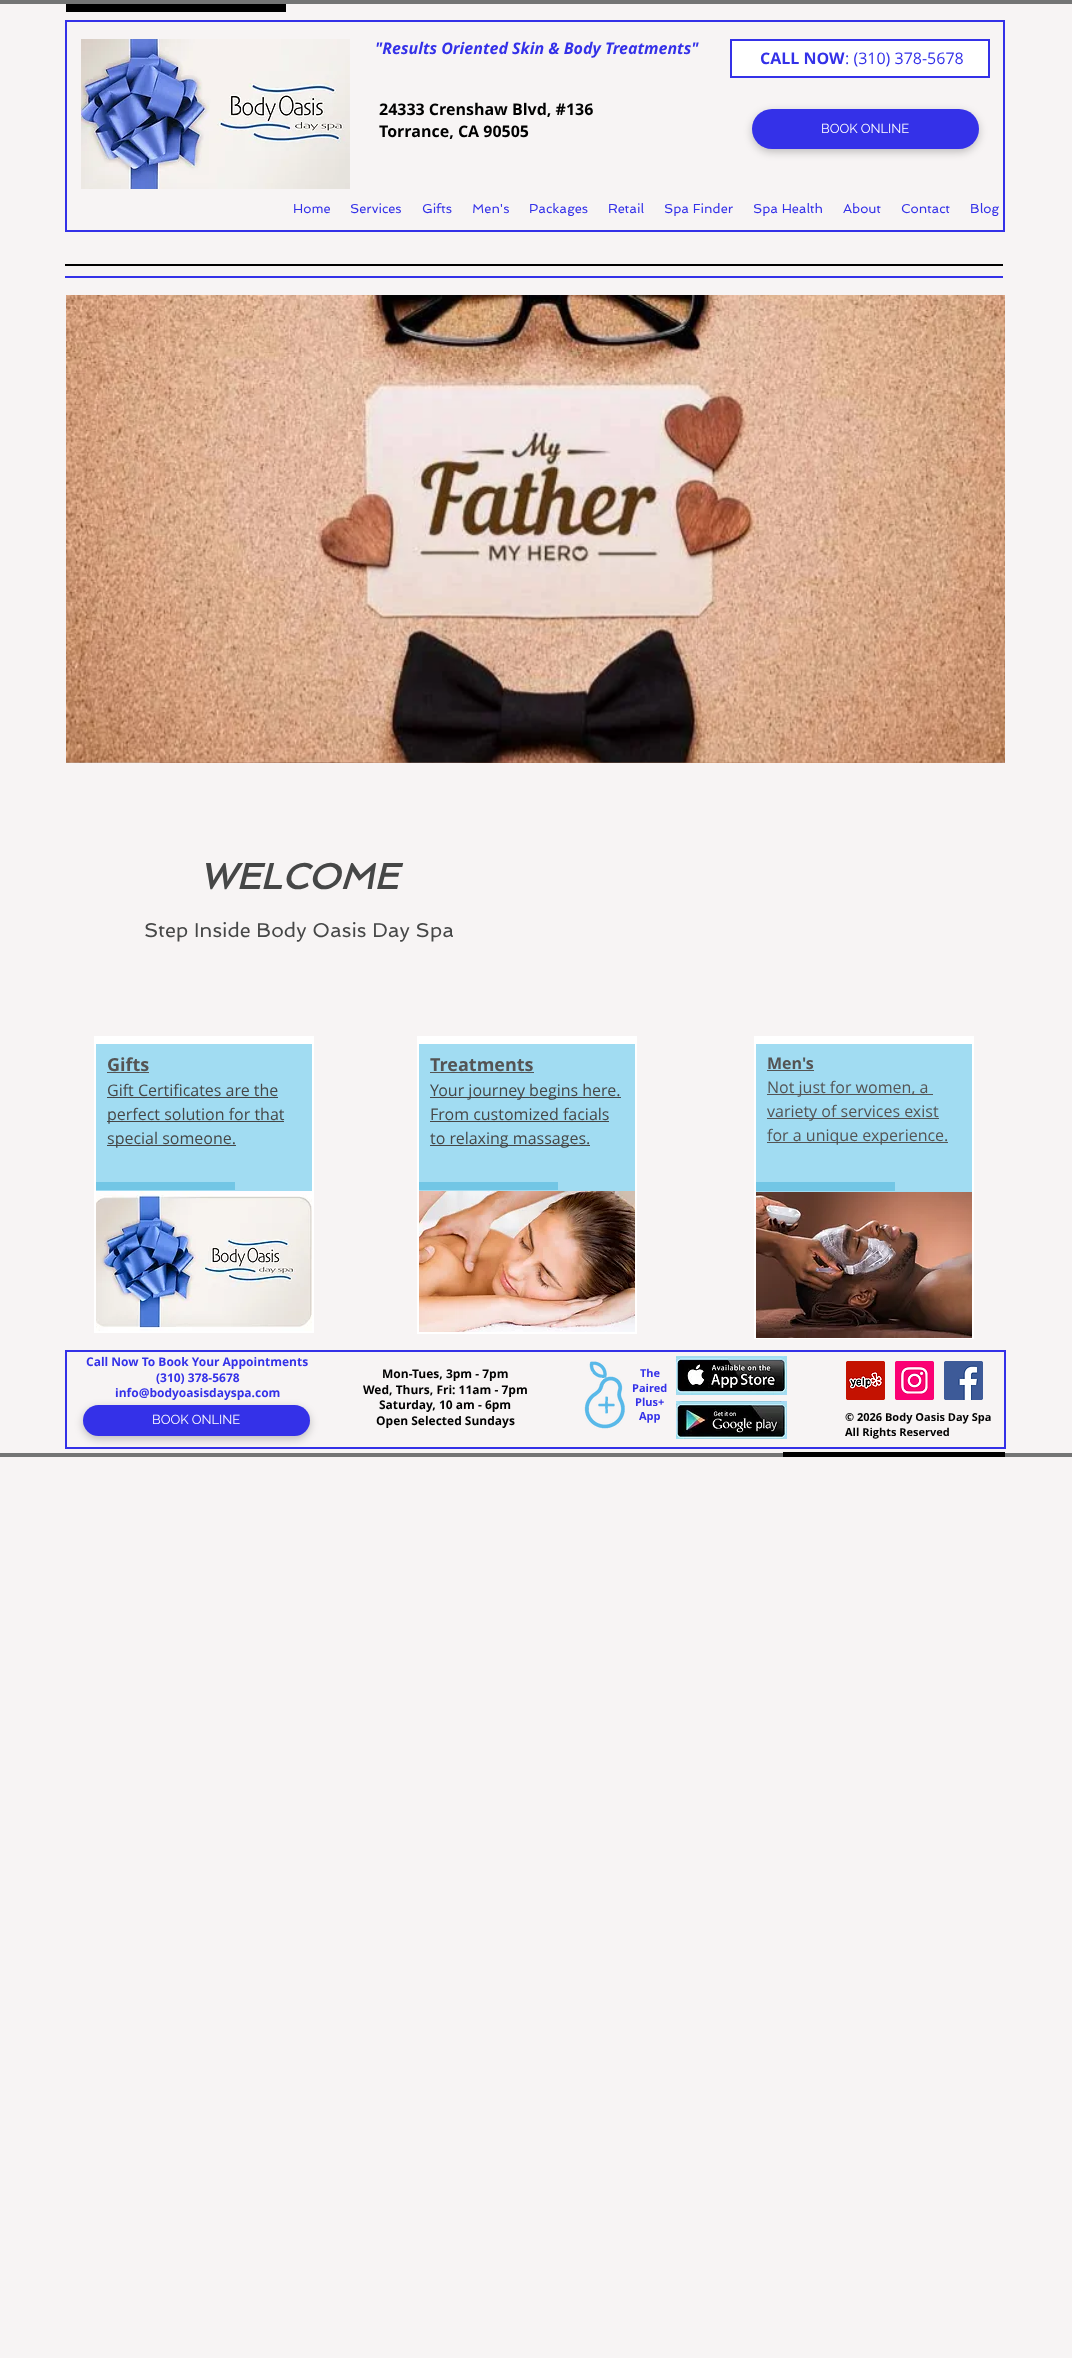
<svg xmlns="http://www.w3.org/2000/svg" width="1072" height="2358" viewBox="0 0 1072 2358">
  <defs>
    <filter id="blur1" x="-50%" y="-200%" width="200%" height="500%"><feGaussianBlur stdDeviation="4.5"/></filter>
  </defs>
  <rect width="100%" height="100%" fill="#f7f4f4"/>
  <rect x="0" y="0" width="1072" height="4" fill="#747575"/>
  <rect x="66" y="4" width="220" height="8" fill="#000000"/>
  <rect x="66" y="21" width="938" height="210" fill="none" stroke="#3431e8" stroke-width="2"/>
  <image x="81" y="39" width="269" height="150" href="img1.png"/>
  <text x="375" y="54" font-family="Open Sans" font-size="16" font-weight="bold" font-style="italic" fill="#3431e8">"Results Oriented Skin &amp; Body Treatments"</text>
  <rect x="731" y="40" width="258" height="37" fill="#ffffff" stroke="#3431e8" stroke-width="2"/>
  <text x="760" y="64" font-family="Open Sans" font-size="16" font-weight="bold" fill="#3431e8">CALL NOW</text>
  <text x="845" y="64" font-family="Open Sans" font-size="16" fill="#3431e8">: (310) 378-5678</text>
  <text x="379" y="115" font-family="Open Sans" font-size="16" font-weight="bold" fill="#000000">24333 Crenshaw Blvd, #136</text>
  <text x="379" y="137" font-family="Open Sans" font-size="16" font-weight="bold" fill="#000000">Torrance, CA 90505</text>
  <rect x="752" y="112" width="227" height="40" rx="20" fill="#000000" fill-opacity="0.23" filter="url(#blur1)"/>
  <rect x="752" y="109" width="227" height="40" rx="20" fill="#3431e8"/>
  <text x="821" y="133" font-family="Raleway" font-size="13" fill="#ffffff">BOOK ONLINE</text>
  <text x="293" y="213" font-family="Spinnaker" font-size="13" fill="#3431e8">Home</text>
  <text x="350" y="213" font-family="Spinnaker" font-size="13" fill="#3431e8">Services</text>
  <text x="422" y="213" font-family="Spinnaker" font-size="13" fill="#3431e8">Gifts</text>
  <text x="472" y="213" font-family="Spinnaker" font-size="13" fill="#3431e8">Men's</text>
  <text x="529" y="213" font-family="Spinnaker" font-size="13" fill="#3431e8">Packages</text>
  <text x="608" y="213" font-family="Spinnaker" font-size="13" fill="#3431e8">Retail</text>
  <text x="664" y="213" font-family="Spinnaker" font-size="13" fill="#3431e8">Spa Finder</text>
  <text x="753" y="213" font-family="Spinnaker" font-size="13" fill="#3431e8">Spa Health</text>
  <text x="843" y="213" font-family="Spinnaker" font-size="13" fill="#3431e8">About</text>
  <text x="901" y="213" font-family="Spinnaker" font-size="13" fill="#3431e8">Contact</text>
  <text x="970" y="213" font-family="Spinnaker" font-size="13" fill="#3431e8">Blog</text>
  <rect x="65" y="264" width="938" height="2" fill="#000000"/>
  <rect x="65" y="276" width="938" height="2" fill="#3431e8"/>
  <image x="66" y="762" width="939" height="1" href="img3.png"/>
  <image x="66" y="295" width="939" height="468" href="img2.png"/>
  <text x="199" y="889" font-family="Spinnaker" font-size="36" font-weight="bold" font-style="italic" fill="#464747">WELCOME</text>
  <text x="144" y="937" font-family="Spinnaker" font-size="20" fill="#464747">Step Inside Body Oasis Day Spa</text>
  <rect x="96" y="1044" width="216" height="147" fill="#a1dcf2"/>
  <rect x="95" y="1037" width="218" height="295" fill="none" stroke="#ffffff" stroke-width="2"/>
  <rect x="95" y="1038" width="219" height="6" fill="#ffffff"/>
  <text x="107" y="1071" font-family="Open Sans" font-size="18" font-weight="bold" fill="#545454">Gifts</text>
  <rect x="107" y="1072" width="42" height="1" fill="#545454"/>
  <text x="107" y="1096" font-family="Open Sans" font-size="16" fill="#464747">Gift Certificates are the</text>
  <rect x="107" y="1097" width="171" height="1" fill="#464747"/>
  <rect x="107" y="1121" width="177" height="1" fill="#464747"/>
  <text x="107" y="1120" font-family="Open Sans" font-size="16" fill="#464747">perfect solution for that</text>
  <rect x="107" y="1145" width="129" height="1" fill="#464747"/>
  <text x="107" y="1144" font-family="Open Sans" font-size="16" fill="#464747">special someone.</text>
  <rect x="96" y="1182" width="139" height="8" fill="#72c6e5"/>
  <image x="96" y="1191" width="216" height="140" href="img4.png"/>
  <rect x="419" y="1044" width="216" height="147" fill="#a1dcf2"/>
  <rect x="418" y="1037" width="218" height="296" fill="none" stroke="#ffffff" stroke-width="2"/>
  <rect x="418" y="1038" width="219" height="6" fill="#ffffff"/>
  <text x="430" y="1071" font-family="Open Sans" font-size="18" font-weight="bold" fill="#545454">Treatments</text>
  <rect x="430" y="1072" width="104" height="1" fill="#545454"/>
  <rect x="430" y="1097" width="191" height="1" fill="#464747"/>
  <text x="430" y="1096" font-family="Open Sans" font-size="16" fill="#464747">Your journey begins here.</text>
  <text x="430" y="1120" font-family="Open Sans" font-size="16" fill="#464747">From customized facials</text>
  <rect x="430" y="1121" width="179" height="1" fill="#464747"/>
  <rect x="430" y="1145" width="160" height="1" fill="#464747"/>
  <text x="430" y="1144" font-family="Open Sans" font-size="16" fill="#464747">to relaxing massages.</text>
  <rect x="419" y="1182" width="139" height="8" fill="#72c6e5"/>
  <image x="419" y="1191" width="216" height="141" href="img5.png"/>
  <rect x="756" y="1044" width="216" height="148" fill="#a1dcf2"/>
  <rect x="755" y="1037" width="218" height="301" fill="none" stroke="#ffffff" stroke-width="2"/>
  <rect x="755" y="1038" width="219" height="6" fill="#ffffff"/>
  <text x="767" y="1069" font-family="Open Sans" font-size="16" font-weight="bold" fill="#545454">Men's</text>
  <rect x="767" y="1070" width="47" height="1" fill="#545454"/>
  <rect x="767" y="1094" width="166" height="1" fill="#545454"/>
  <text x="767" y="1093" font-family="Open Sans" font-size="16" fill="#545454">Not just for women, a</text>
  <rect x="767" y="1118" width="172" height="1" fill="#545454"/>
  <text x="767" y="1117" font-family="Open Sans" font-size="16" fill="#545454">variety of services exist</text>
  <rect x="767" y="1142" width="181" height="1" fill="#545454"/>
  <text x="767" y="1141" font-family="Open Sans" font-size="16" fill="#545454">for a unique experience.</text>
  <rect x="756" y="1182" width="139" height="9" fill="#72c6e5"/>
  <image x="756" y="1192" width="216" height="146" href="img6.png"/>
  <rect x="66" y="1351" width="939" height="97" fill="none" stroke="#3431e8" stroke-width="2"/>
  <text x="86" y="1366" font-family="Open Sans" font-size="12" font-weight="bold" fill="#3431e8">Call Now To Book Your Appointments</text>
  <text x="156" y="1382" font-family="Open Sans" font-size="12" font-weight="bold" fill="#3431e8">(310) 378-5678</text>
  <text x="115" y="1397" font-family="Open Sans" font-size="12" font-weight="bold" fill="#3431e8">info@bodyoasisdayspa.com</text>
  <text x="382" y="1378" font-family="Open Sans" font-size="12" font-weight="bold" fill="#000000">Mon-Tues, 3pm - 7pm</text>
  <text x="363" y="1394" font-family="Open Sans" font-size="12" font-weight="bold" fill="#000000">Wed, Thurs, Fri: 11am - 7pm</text>
  <text x="379" y="1409" font-family="Open Sans" font-size="12" font-weight="bold" fill="#000000">Saturday, 10 am - 6pm</text>
  <text x="376" y="1425" font-family="Open Sans" font-size="12" font-weight="bold" fill="#000000">Open Selected Sundays</text>
  <image x="584" y="1361" width="41" height="68" href="img7.png"/>
  <text x="640" y="1377" font-family="Open Sans" font-size="11" font-weight="bold" fill="#3431e8">The</text>
  <text x="632" y="1392" font-family="Open Sans" font-size="11" font-weight="bold" fill="#3431e8">Paired</text>
  <text x="635" y="1406" font-family="Open Sans" font-size="11" font-weight="bold" fill="#3431e8">Plus+</text>
  <text x="639" y="1420" font-family="Open Sans" font-size="11" font-weight="bold" fill="#3431e8">App</text>
  <image x="676" y="1356" width="111" height="39" href="img8.png"/>
  <image x="846" y="1361" width="39" height="39" href="img9.png"/>
  <image x="895" y="1361" width="39" height="39" href="img10.png"/>
  <image x="944" y="1361" width="39" height="39" href="img11.png"/>
  <image x="676" y="1401" width="111" height="38" href="img12.png"/>
  <text x="845" y="1421" font-family="Open Sans" font-size="11" font-weight="bold" fill="#000000">© 2026 Body Oasis Day Spa</text>
  <text x="845" y="1436" font-family="Open Sans" font-size="11" font-weight="bold" fill="#000000">All Rights Reserved</text>
  <rect x="0" y="1453" width="1072" height="4" fill="#747575"/>
  <rect x="83" y="1408" width="227" height="31" rx="15.5" fill="#000000" fill-opacity="0.23" filter="url(#blur1)"/>
  <rect x="83" y="1405" width="227" height="31" rx="15.5" fill="#3431e8"/>
  <text x="152" y="1424" font-family="Raleway" font-size="13" fill="#ffffff">BOOK ONLINE</text>
  <rect x="783" y="1452" width="222" height="5" fill="#000000"/>
</svg>
